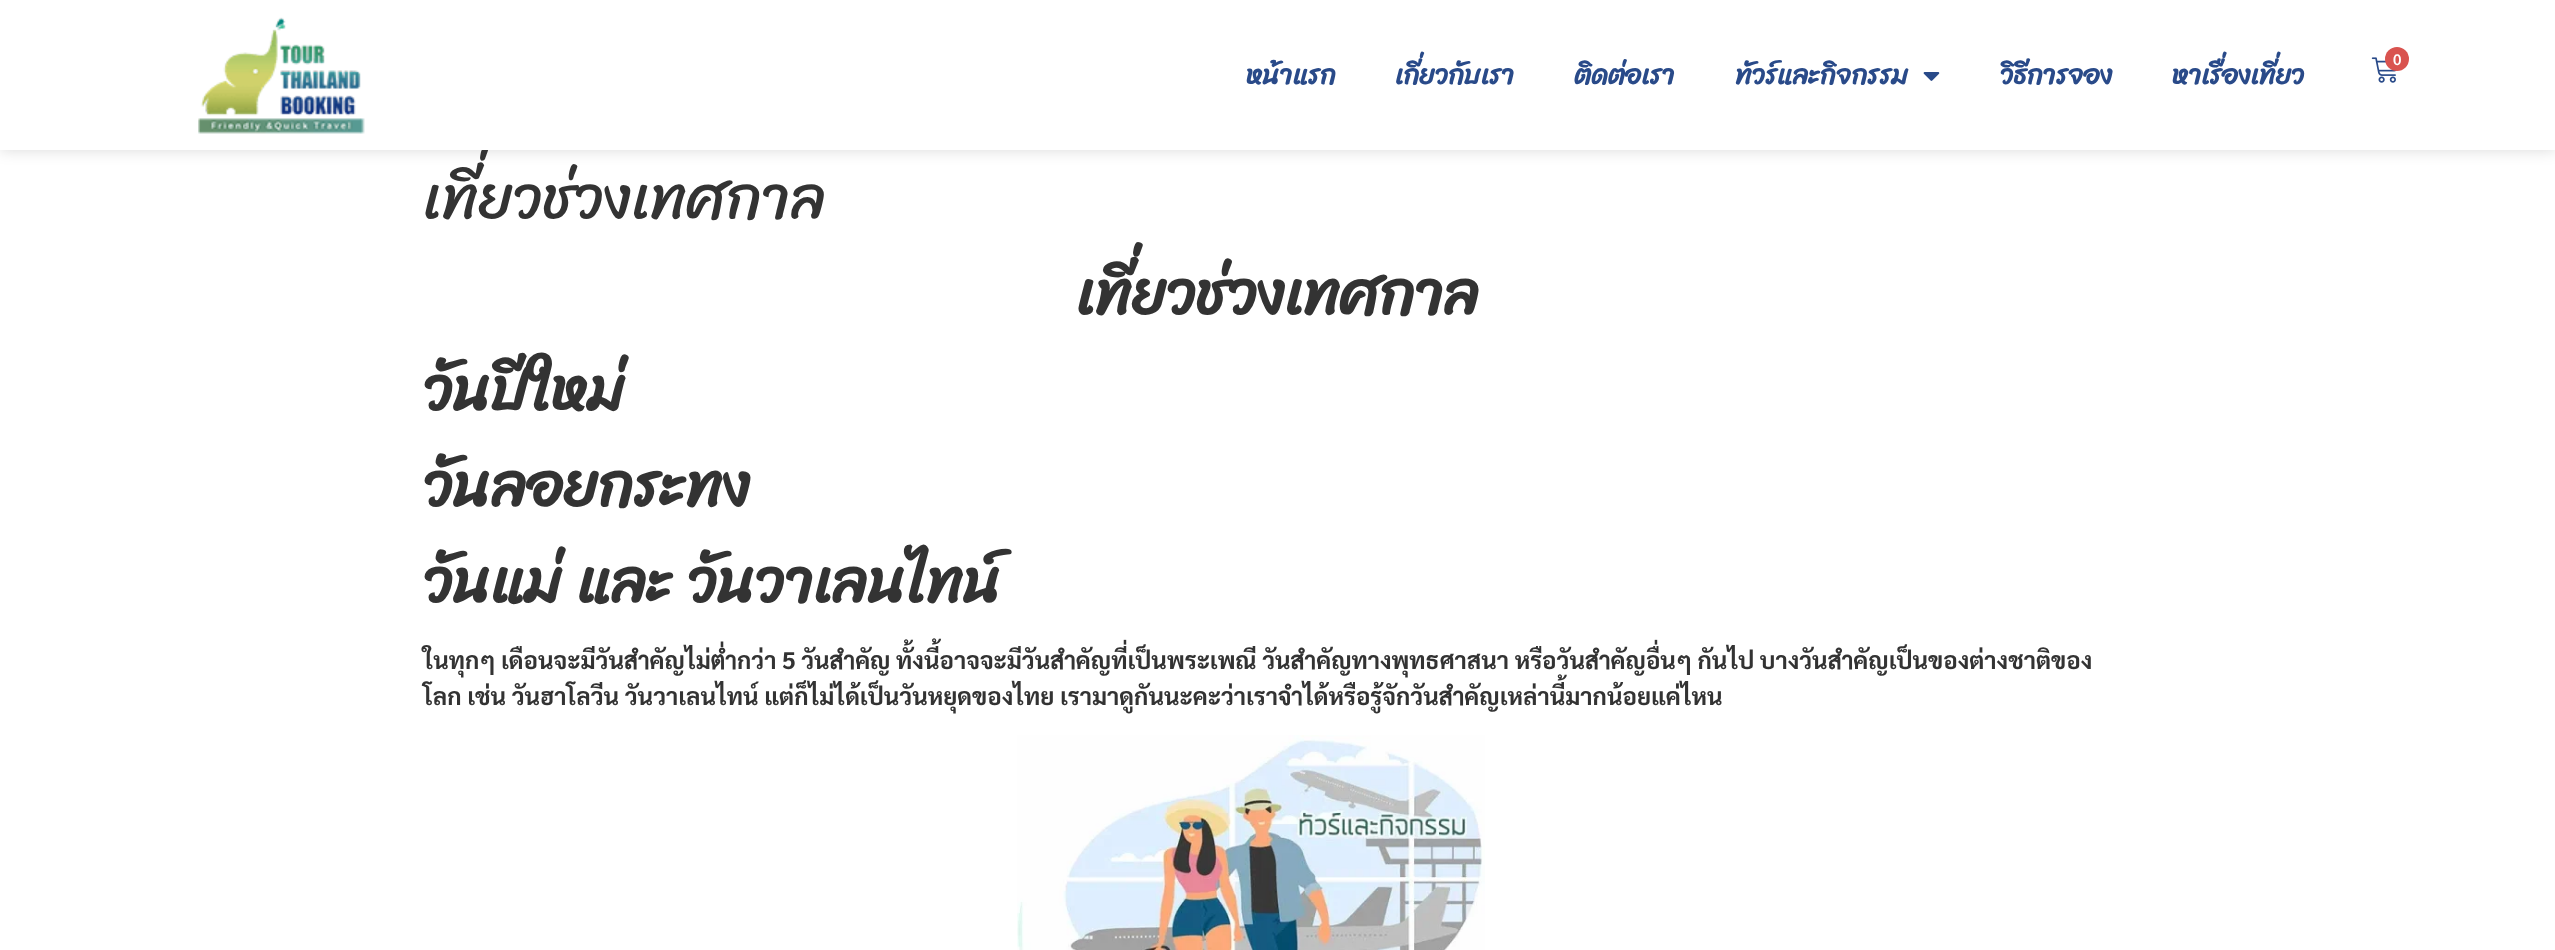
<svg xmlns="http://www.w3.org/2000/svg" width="2555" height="950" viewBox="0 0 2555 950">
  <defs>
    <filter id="blur1" x="-50%" y="-200%" width="200%" height="500%"><feGaussianBlur stdDeviation="7.5"/></filter>
  </defs>
  <rect width="100%" height="100%" fill="#ffffff"/>
  <rect x="0" y="0" width="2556" height="150" fill="#000000" fill-opacity="0.15" filter="url(#blur1)"/>
  <text x="423" y="218" font-family="Sriracha" font-size="60" fill="#333333">เที่ยวช่วงเทศกาล</text>
  <rect x="0" y="0" width="2555" height="150" fill="#ffffff"/>
  <image x="198" y="17" width="167" height="117" href="img1.png"/>
  <text x="1246" y="84" font-family="Sriracha" font-size="27" font-weight="bold" fill="#294a89">หน้าแรก</text>
  <text x="1395" y="84" font-family="Sriracha" font-size="27" font-weight="bold" fill="#294a89">เกี่ยวกับเรา</text>
  <text x="1574" y="84" font-family="Sriracha" font-size="27" font-weight="bold" fill="#294a89">ติดต่อเรา</text>
  <text x="1735" y="84" font-family="Sriracha" font-size="27" font-weight="bold" fill="#294a89">ทัวร์และกิจกรรม</text>
  <image x="1923" y="72" width="17" height="9" href="img2.png"/>
  <text x="2000" y="84" font-family="Sriracha" font-size="27" font-weight="bold" fill="#294a89">วิธีการจอง</text>
  <text x="2172" y="84" font-family="Sriracha" font-size="27" font-weight="bold" fill="#294a89">หาเรื่องเที่ยว</text>
  <image x="2371" y="57" width="26" height="26" href="img3.png"/>
  <circle cx="2397" cy="59" r="12" fill="#d9534f"/>
  <text x="2393" y="65" font-family="Sarabun" font-size="15" font-weight="600" fill="#ffffff">0</text>
  <text x="1076" y="314" font-family="Sriracha" font-size="60" font-weight="bold" fill="#333333">เที่ยวช่วงเทศกาล</text>
  <text x="423" y="410" font-family="Sriracha" font-size="60" font-weight="bold" fill="#333333">วันปีใหม่</text>
  <text x="423" y="506" font-family="Sriracha" font-size="60" font-weight="bold" fill="#333333">วันลอยกระทง</text>
  <text x="423" y="602" font-family="Sriracha" font-size="60" font-weight="bold" fill="#333333">วันแม่ และ วันวาเลนไทน์</text>
  <text x="423" y="669" font-family="Sarabun" font-size="24" font-weight="bold" fill="#333333">ในทุกๆ เดือนจะมีวันสำคัญไม่ต่ำกว่า 5 วันสำคัญ ทั้งนี้อาจจะมีวันสำคัญที่เป็นพระเพณี วันสำคัญทางพุทธศาสนา หรือวันสำคัญอื่นๆ กันไป บางวันสำคัญเป็นของต่างชาติของ</text>
  <text x="423" y="705" font-family="Sarabun" font-size="24" font-weight="bold" fill="#333333">โลก เช่น วันฮาโลวีน วันวาเลนไทน์ แต่ก็ไม่ได้เป็นวันหยุดของไทย เรามาดูกันนะคะว่าเราจำได้หรือรู้จักวันสำคัญเหล่านี้มากน้อยแค่ไหน</text>
  <image x="1017" y="735" width="468" height="215" href="img4.png"/>
</svg>
